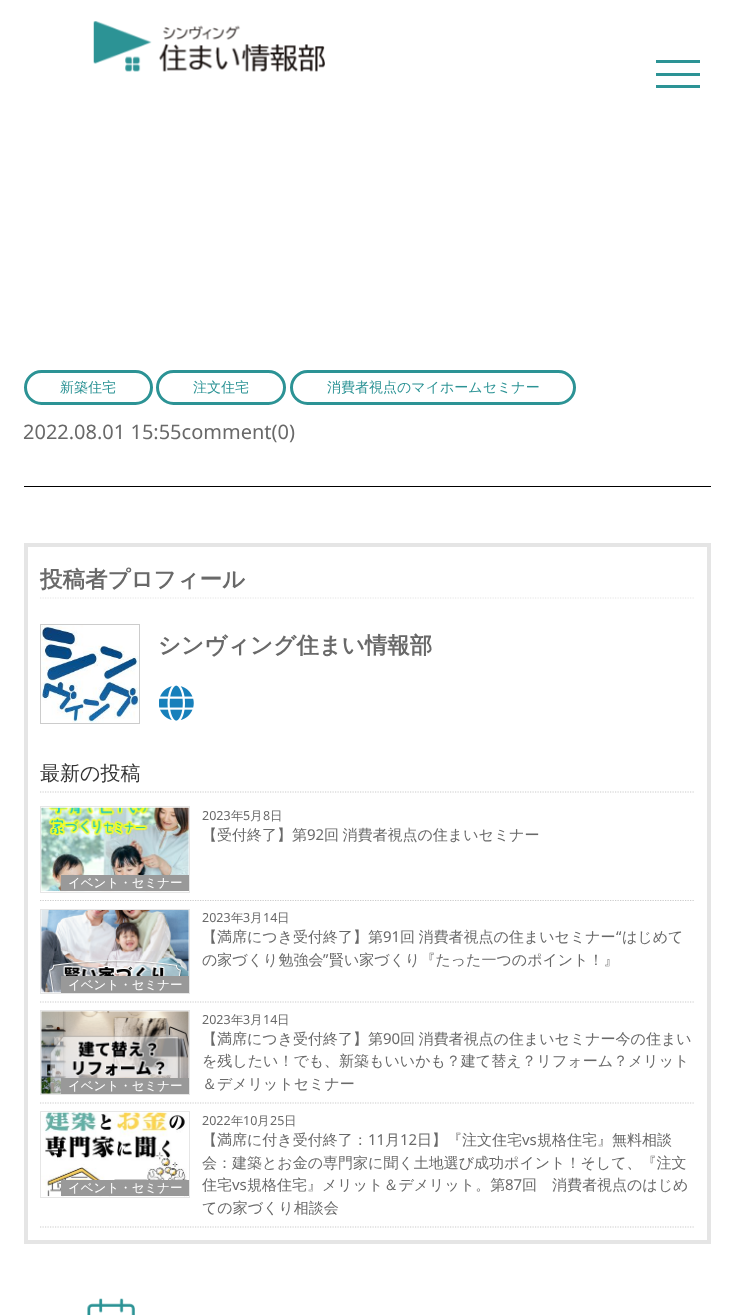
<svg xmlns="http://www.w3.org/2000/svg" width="735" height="1315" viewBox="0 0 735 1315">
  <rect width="100%" height="100%" fill="#ffffff"/>
  <image x="93" y="21" width="232" height="51" href="img1.png"/>
  <rect x="656" y="73" width="44" height="3" fill="#2c9395"/>
  <rect x="656" y="60" width="44" height="3" fill="#2c9395"/>
  <rect x="656" y="85" width="44" height="3" fill="#2c9395"/>
  <rect x="24" y="486" width="687" height="1" fill="#000000"/>
  <rect x="25.5" y="371.5" width="126" height="32" rx="16" fill="none" stroke="#2c9395" stroke-width="3"/>
  <text x="60" y="392" font-family="WenQuanYi Zen Hei" font-size="14" font-weight="500" fill="#2c9395">新築住宅</text>
  <rect x="157.5" y="371.5" width="127" height="32" rx="16" fill="none" stroke="#2c9395" stroke-width="3"/>
  <text x="193" y="392" font-family="WenQuanYi Zen Hei" font-size="14" font-weight="500" fill="#2c9395">注文住宅</text>
  <rect x="291.5" y="371.5" width="283" height="32" rx="16" fill="none" stroke="#2c9395" stroke-width="3"/>
  <text x="327" y="392" font-family="WenQuanYi Zen Hei" font-size="14" font-weight="500" fill="#2c9395">消費者視点のマイホームセミナー</text>
  <text x="23" y="439" font-family="Noto Sans" font-size="20" fill="#696969">2022.08.01 15:55comment(0)</text>
  <rect x="26" y="545" width="683" height="697" fill="none" stroke="#e5e5e5" stroke-width="4"/>
  <path d="M40 598H695" fill="none" stroke="#e5e5e5" stroke-width="1.2" stroke-dasharray="1.25 1.25"/>
  <text x="40" y="587" font-family="WenQuanYi Zen Hei" font-size="22.5" font-weight="bold" fill="#696969">投稿者プロフィール</text>
  <rect x="40.5" y="624.5" width="99" height="99" fill="none" stroke="#cccccc"/>
  <image x="41" y="625" width="98" height="98" href="img2.png"/>
  <text x="158" y="653" font-family="WenQuanYi Zen Hei" font-size="22.5" font-weight="bold" fill="#696969">シンヴィング住まい情報部</text>
  <image x="159" y="685" width="35" height="36" href="img3.png"/>
  <path d="M40 792H695" fill="none" stroke="#cccccc" stroke-width="1.2" stroke-dasharray="1.25 1.25"/>
  <text x="40" y="780" font-family="WenQuanYi Zen Hei" font-size="20" font-weight="500" fill="#333333">最新の投稿</text>
  <path d="M40 900.5H695" fill="none" stroke="#cccccc" stroke-width="1.2" stroke-dasharray="1.25 1.25"/>
  <text x="202" y="820" font-family="Noto Sans" font-size="12.5" fill="#696969">2023</text>
  <text x="231" y="820" font-family="WenQuanYi Zen Hei" font-size="12.5" font-weight="500" fill="#696969">年</text>
  <text x="243" y="820" font-family="Noto Sans" font-size="12.5" fill="#696969">5</text>
  <text x="250" y="820" font-family="WenQuanYi Zen Hei" font-size="12.5" font-weight="500" fill="#696969">月</text>
  <text x="263" y="820" font-family="Noto Sans" font-size="12.5" fill="#696969">8</text>
  <text x="270" y="820" font-family="WenQuanYi Zen Hei" font-size="12.5" font-weight="500" fill="#696969">日</text>
  <text x="202" y="840" font-family="WenQuanYi Zen Hei" font-size="15" font-weight="500" fill="#696969">【受付終了】第</text>
  <text x="307" y="840" font-family="Noto Sans" font-size="15" fill="#696969">92</text>
  <text x="324" y="840" word-spacing="-1" font-family="WenQuanYi Zen Hei" font-size="15" font-weight="500" fill="#696969">回 消費者視点の住まいセミナー</text>
  <rect x="40.5" y="806.5" width="149" height="86" fill="none" stroke="#e6e6e6"/>
  <image x="41" y="807" width="148" height="85" href="img4.png"/>
  <rect x="61" y="875" width="128" height="16" fill="#999999"/>
  <text x="68" y="887" font-family="WenQuanYi Zen Hei" font-size="12.5" font-weight="500" fill="#ffffff">イベント・セミナー</text>
  <path d="M40 1002H695" fill="none" stroke="#cccccc" stroke-width="1.2" stroke-dasharray="1.25 1.25"/>
  <text x="202" y="922" font-family="Noto Sans" font-size="12.5" fill="#696969">2023</text>
  <text x="231" y="922" font-family="WenQuanYi Zen Hei" font-size="12.5" font-weight="500" fill="#696969">年</text>
  <text x="243" y="922" font-family="Noto Sans" font-size="12.5" fill="#696969">3</text>
  <text x="250" y="922" font-family="WenQuanYi Zen Hei" font-size="12.5" font-weight="500" fill="#696969">月</text>
  <text x="263" y="922" font-family="Noto Sans" font-size="12.5" fill="#696969">14</text>
  <text x="277" y="922" font-family="WenQuanYi Zen Hei" font-size="12.5" font-weight="500" fill="#696969">日</text>
  <text x="202" y="942" font-family="WenQuanYi Zen Hei" font-size="15" font-weight="500" fill="#696969">【満席につき受付終了】第</text>
  <text x="383" y="942" font-family="Noto Sans" font-size="15" fill="#696969">91</text>
  <text x="400" y="942" word-spacing="-1" font-family="WenQuanYi Zen Hei" font-size="15" font-weight="500" fill="#696969">回 消費者視点の住まいセミナー</text>
  <text x="616" y="942" font-family="Noto Sans" font-size="15" fill="#696969">“</text>
  <text x="622" y="942" font-family="WenQuanYi Zen Hei" font-size="15" font-weight="500" fill="#696969">はじめて</text>
  <text x="202" y="965" font-family="WenQuanYi Zen Hei" font-size="15" font-weight="500" fill="#696969">の家づくり勉強会</text>
  <text x="323" y="965" font-family="Noto Sans" font-size="15" fill="#696969">”</text>
  <text x="329" y="965" font-family="WenQuanYi Zen Hei" font-size="15" font-weight="500" fill="#696969">賢い家づくり『たった一つのポイント！』</text>
  <rect x="40.5" y="909.5" width="149" height="84" fill="none" stroke="#e6e6e6"/>
  <image x="41" y="910" width="148" height="83" href="img5.png"/>
  <rect x="61" y="976" width="128" height="17" fill="#999999"/>
  <text x="68" y="989" font-family="WenQuanYi Zen Hei" font-size="12.5" font-weight="500" fill="#ffffff">イベント・セミナー</text>
  <path d="M40 1103H695" fill="none" stroke="#cccccc" stroke-width="1.2" stroke-dasharray="1.25 1.25"/>
  <text x="202" y="1024" font-family="Noto Sans" font-size="12.5" fill="#696969">2023</text>
  <text x="231" y="1024" font-family="WenQuanYi Zen Hei" font-size="12.5" font-weight="500" fill="#696969">年</text>
  <text x="243" y="1024" font-family="Noto Sans" font-size="12.5" fill="#696969">3</text>
  <text x="250" y="1024" font-family="WenQuanYi Zen Hei" font-size="12.5" font-weight="500" fill="#696969">月</text>
  <text x="263" y="1024" font-family="Noto Sans" font-size="12.5" fill="#696969">14</text>
  <text x="277" y="1024" font-family="WenQuanYi Zen Hei" font-size="12.5" font-weight="500" fill="#696969">日</text>
  <rect x="40.5" y="1010.5" width="149" height="84" fill="none" stroke="#e6e6e6"/>
  <image x="41" y="1011" width="148" height="83" href="img6.png"/>
  <rect x="61" y="1078" width="128" height="16" fill="#999999"/>
  <text x="68" y="1090" font-family="WenQuanYi Zen Hei" font-size="12.5" font-weight="500" fill="#ffffff">イベント・セミナー</text>
  <text x="202" y="1044" font-family="WenQuanYi Zen Hei" font-size="15" font-weight="500" fill="#696969">【満席につき受付終了】第</text>
  <text x="383" y="1044" font-family="Noto Sans" font-size="15" fill="#696969">90</text>
  <text x="400" y="1044" word-spacing="-1" font-family="WenQuanYi Zen Hei" font-size="15" font-weight="500" fill="#696969">回 消費者視点の住まいセミナー今の住まい</text>
  <text x="202" y="1066" font-family="WenQuanYi Zen Hei" font-size="15" font-weight="500" fill="#696969">を残したい！でも、新築もいいかも？建て替え？リフォーム？メリット</text>
  <text x="202" y="1089" font-family="WenQuanYi Zen Hei" font-size="15" font-weight="500" fill="#696969">＆デメリットセミナー</text>
  <path d="M40 1227H695" fill="none" stroke="#cccccc" stroke-width="1.2" stroke-dasharray="1.25 1.25"/>
  <text x="202" y="1125" font-family="Noto Sans" font-size="12.5" fill="#696969">2022</text>
  <text x="231" y="1125" font-family="WenQuanYi Zen Hei" font-size="12.5" font-weight="500" fill="#696969">年</text>
  <text x="243" y="1125" font-family="Noto Sans" font-size="12.5" fill="#696969">10</text>
  <text x="257" y="1125" font-family="WenQuanYi Zen Hei" font-size="12.5" font-weight="500" fill="#696969">月</text>
  <text x="270" y="1125" font-family="Noto Sans" font-size="12.5" fill="#696969">25</text>
  <text x="284" y="1125" font-family="WenQuanYi Zen Hei" font-size="12.5" font-weight="500" fill="#696969">日</text>
  <rect x="40.5" y="1111.5" width="149" height="86" fill="none" stroke="#e6e6e6"/>
  <image x="41" y="1112" width="146" height="85" href="img7.png"/>
  <rect x="61" y="1180" width="128" height="16" fill="#999999"/>
  <text x="68" y="1192" font-family="WenQuanYi Zen Hei" font-size="12.5" font-weight="500" fill="#ffffff">イベント・セミナー</text>
  <text x="202" y="1145" font-family="WenQuanYi Zen Hei" font-size="15" font-weight="500" fill="#696969">【満席に付き受付終了：</text>
  <text x="368" y="1145" font-family="Noto Sans" font-size="15" fill="#696969">11</text>
  <text x="385" y="1145" font-family="WenQuanYi Zen Hei" font-size="15" font-weight="500" fill="#696969">月</text>
  <text x="400" y="1145" font-family="Noto Sans" font-size="15" fill="#696969">12</text>
  <text x="417" y="1145" font-family="WenQuanYi Zen Hei" font-size="15" font-weight="500" fill="#696969">日】『注文住宅</text>
  <text x="522" y="1145" font-family="Noto Sans" font-size="15" fill="#696969">vs</text>
  <text x="537" y="1145" font-family="WenQuanYi Zen Hei" font-size="15" font-weight="500" fill="#696969">規格住宅』無料相談</text>
  <text x="202" y="1168" font-family="WenQuanYi Zen Hei" font-size="15" font-weight="500" fill="#696969">会：建築とお金の専門家に聞く土地選び成功ポイント！そして、『注文</text>
  <text x="202" y="1190" font-family="WenQuanYi Zen Hei" font-size="15" font-weight="500" fill="#696969">住宅</text>
  <text x="232" y="1190" font-family="Noto Sans" font-size="15" fill="#696969">vs</text>
  <text x="247" y="1190" font-family="WenQuanYi Zen Hei" font-size="15" font-weight="500" fill="#696969">規格住宅』メリット＆デメリット。第</text>
  <text x="505" y="1190" font-family="Noto Sans" font-size="15" fill="#696969">87</text>
  <text x="522" y="1190" font-family="WenQuanYi Zen Hei" font-size="15" font-weight="500" fill="#696969">回　消費者視点のはじめ</text>
  <text x="202" y="1213" font-family="WenQuanYi Zen Hei" font-size="15" font-weight="500" fill="#696969">ての家づくり相談会</text>
  <image x="87" y="1298" width="48" height="17" href="img8.png"/>
</svg>
